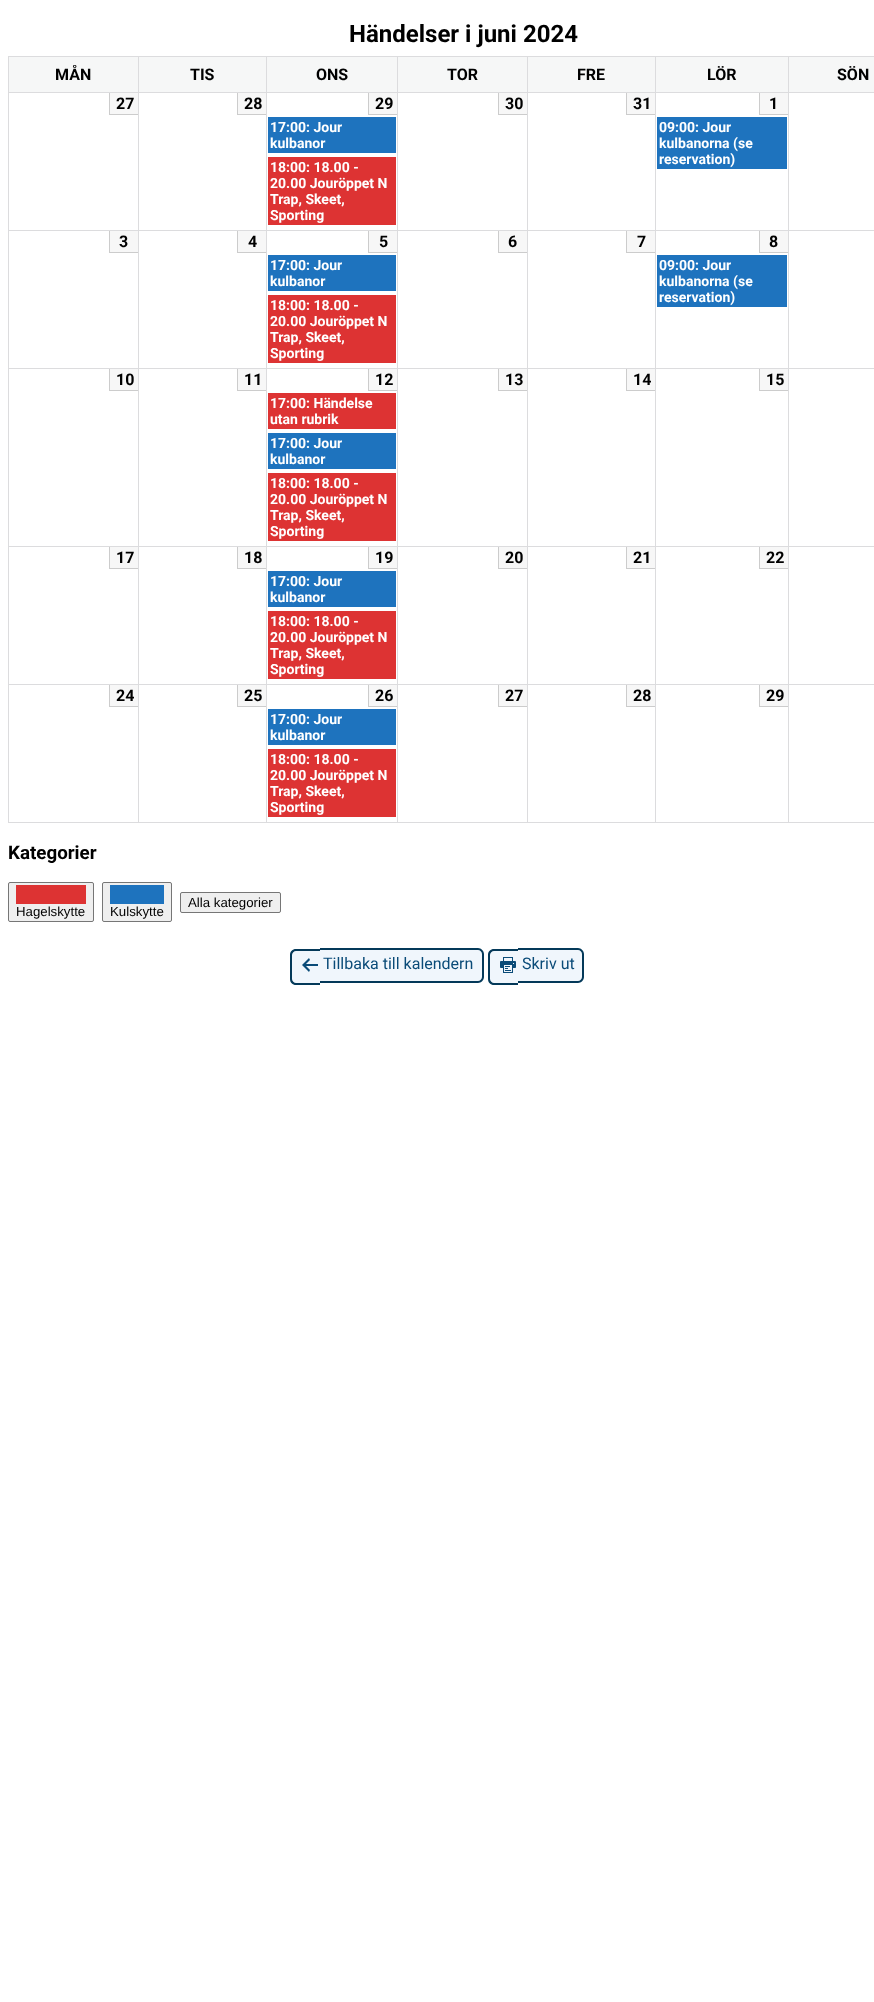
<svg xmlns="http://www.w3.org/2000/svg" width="874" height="2002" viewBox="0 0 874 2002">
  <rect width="100%" height="100%" fill="#ffffff"/>
  <text x="349" y="42" font-family="Roboto" font-size="24" font-weight="bold" fill="#000000">Händelser i juni 2024</text>
  <rect x="8" y="56" width="866" height="1" fill="#dcdcde"/>
  <rect x="8" y="56" width="1" height="767" fill="#dcdcde"/>
  <rect x="9" y="57" width="129" height="35" fill="#f6f7f7"/>
  <text x="55" y="80" font-family="Roboto" font-size="16" font-weight="bold" fill="#000000">MÅN</text>
  <rect x="139" y="57" width="127" height="35" fill="#f6f7f7"/>
  <rect x="788" y="92" width="86" height="1" fill="#dcdcde"/>
  <rect x="788" y="230" width="86" height="1" fill="#dcdcde"/>
  <rect x="788" y="368" width="86" height="1" fill="#dcdcde"/>
  <rect x="788" y="546" width="86" height="1" fill="#dcdcde"/>
  <rect x="788" y="684" width="86" height="1" fill="#dcdcde"/>
  <rect x="788" y="822" width="86" height="1" fill="#dcdcde"/>
  <rect x="788" y="684" width="1" height="139" fill="#dcdcde"/>
  <rect x="655" y="684" width="134" height="1" fill="#dcdcde"/>
  <rect x="788" y="546" width="1" height="139" fill="#dcdcde"/>
  <rect x="655" y="546" width="134" height="1" fill="#dcdcde"/>
  <rect x="788" y="368" width="1" height="179" fill="#dcdcde"/>
  <rect x="655" y="368" width="134" height="1" fill="#dcdcde"/>
  <rect x="788" y="230" width="1" height="139" fill="#dcdcde"/>
  <rect x="655" y="230" width="134" height="1" fill="#dcdcde"/>
  <rect x="788" y="92" width="1" height="139" fill="#dcdcde"/>
  <rect x="655" y="92" width="134" height="1" fill="#dcdcde"/>
  <rect x="655" y="822" width="134" height="1" fill="#dcdcde"/>
  <rect x="655" y="684" width="1" height="139" fill="#dcdcde"/>
  <rect x="527" y="684" width="129" height="1" fill="#dcdcde"/>
  <rect x="655" y="546" width="1" height="139" fill="#dcdcde"/>
  <rect x="527" y="546" width="129" height="1" fill="#dcdcde"/>
  <rect x="655" y="368" width="1" height="179" fill="#dcdcde"/>
  <rect x="527" y="368" width="129" height="1" fill="#dcdcde"/>
  <rect x="655" y="230" width="1" height="139" fill="#dcdcde"/>
  <rect x="527" y="230" width="129" height="1" fill="#dcdcde"/>
  <rect x="655" y="92" width="1" height="139" fill="#dcdcde"/>
  <rect x="527" y="92" width="129" height="1" fill="#dcdcde"/>
  <rect x="527" y="822" width="129" height="1" fill="#dcdcde"/>
  <rect x="527" y="684" width="1" height="139" fill="#dcdcde"/>
  <rect x="397" y="684" width="131" height="1" fill="#dcdcde"/>
  <rect x="527" y="546" width="1" height="139" fill="#dcdcde"/>
  <rect x="397" y="546" width="131" height="1" fill="#dcdcde"/>
  <rect x="527" y="368" width="1" height="179" fill="#dcdcde"/>
  <rect x="397" y="368" width="131" height="1" fill="#dcdcde"/>
  <rect x="527" y="230" width="1" height="139" fill="#dcdcde"/>
  <rect x="397" y="230" width="131" height="1" fill="#dcdcde"/>
  <rect x="527" y="92" width="1" height="139" fill="#dcdcde"/>
  <rect x="397" y="92" width="131" height="1" fill="#dcdcde"/>
  <rect x="397" y="822" width="131" height="1" fill="#dcdcde"/>
  <rect x="397" y="684" width="1" height="139" fill="#dcdcde"/>
  <rect x="266" y="684" width="132" height="1" fill="#dcdcde"/>
  <rect x="397" y="546" width="1" height="139" fill="#dcdcde"/>
  <rect x="266" y="546" width="132" height="1" fill="#dcdcde"/>
  <rect x="397" y="368" width="1" height="179" fill="#dcdcde"/>
  <rect x="266" y="368" width="132" height="1" fill="#dcdcde"/>
  <rect x="397" y="230" width="1" height="139" fill="#dcdcde"/>
  <rect x="266" y="230" width="132" height="1" fill="#dcdcde"/>
  <rect x="397" y="92" width="1" height="139" fill="#dcdcde"/>
  <rect x="266" y="92" width="132" height="1" fill="#dcdcde"/>
  <rect x="266" y="822" width="132" height="1" fill="#dcdcde"/>
  <rect x="266" y="684" width="1" height="139" fill="#dcdcde"/>
  <rect x="138" y="684" width="129" height="1" fill="#dcdcde"/>
  <rect x="266" y="546" width="1" height="139" fill="#dcdcde"/>
  <rect x="138" y="546" width="129" height="1" fill="#dcdcde"/>
  <rect x="266" y="368" width="1" height="179" fill="#dcdcde"/>
  <rect x="138" y="368" width="129" height="1" fill="#dcdcde"/>
  <rect x="266" y="230" width="1" height="139" fill="#dcdcde"/>
  <rect x="138" y="230" width="129" height="1" fill="#dcdcde"/>
  <rect x="266" y="92" width="1" height="139" fill="#dcdcde"/>
  <rect x="138" y="92" width="129" height="1" fill="#dcdcde"/>
  <rect x="138" y="822" width="129" height="1" fill="#dcdcde"/>
  <rect x="138" y="684" width="1" height="139" fill="#dcdcde"/>
  <rect x="8" y="684" width="131" height="1" fill="#dcdcde"/>
  <rect x="138" y="546" width="1" height="139" fill="#dcdcde"/>
  <rect x="8" y="546" width="131" height="1" fill="#dcdcde"/>
  <rect x="138" y="368" width="1" height="179" fill="#dcdcde"/>
  <rect x="8" y="368" width="131" height="1" fill="#dcdcde"/>
  <rect x="138" y="230" width="1" height="139" fill="#dcdcde"/>
  <rect x="8" y="230" width="131" height="1" fill="#dcdcde"/>
  <rect x="138" y="92" width="1" height="139" fill="#dcdcde"/>
  <rect x="8" y="92" width="131" height="1" fill="#dcdcde"/>
  <rect x="138" y="56" width="1" height="37" fill="#dcdcde"/>
  <text x="190" y="80" font-family="Roboto" font-size="16" font-weight="bold" fill="#000000">TIS</text>
  <rect x="267" y="57" width="130" height="35" fill="#f6f7f7"/>
  <rect x="266" y="56" width="1" height="37" fill="#dcdcde"/>
  <text x="316" y="80" font-family="Roboto" font-size="16" font-weight="bold" fill="#000000">ONS</text>
  <rect x="398" y="57" width="129" height="35" fill="#f6f7f7"/>
  <rect x="397" y="56" width="1" height="37" fill="#dcdcde"/>
  <text x="447" y="80" font-family="Roboto" font-size="16" font-weight="bold" fill="#000000">TOR</text>
  <rect x="528" y="57" width="127" height="35" fill="#f6f7f7"/>
  <rect x="527" y="56" width="1" height="37" fill="#dcdcde"/>
  <text x="577" y="80" font-family="Roboto" font-size="16" font-weight="bold" fill="#000000">FRE</text>
  <rect x="656" y="57" width="132" height="35" fill="#f6f7f7"/>
  <rect x="655" y="56" width="1" height="37" fill="#dcdcde"/>
  <text x="707" y="80" font-family="Roboto" font-size="16" font-weight="bold" fill="#000000">LÖR</text>
  <rect x="789" y="57" width="85" height="35" fill="#f6f7f7"/>
  <rect x="788" y="56" width="1" height="37" fill="#dcdcde"/>
  <text x="837" y="80" font-family="Roboto" font-size="16" font-weight="bold" fill="#000000">SÖN</text>
  <rect x="110" y="93" width="28" height="21" fill="#f7f7f7"/>
  <rect x="109" y="114" width="29" height="1" fill="#cccccc"/>
  <rect x="109" y="93" width="1" height="22" fill="#cccccc"/>
  <text x="116" y="109" font-family="Roboto" font-size="16" font-weight="bold" fill="#000000">27</text>
  <rect x="238" y="93" width="28" height="21" fill="#f7f7f7"/>
  <rect x="237" y="114" width="29" height="1" fill="#cccccc"/>
  <rect x="237" y="93" width="1" height="22" fill="#cccccc"/>
  <text x="244" y="109" font-family="Roboto" font-size="16" font-weight="bold" fill="#000000">28</text>
  <rect x="369" y="93" width="28" height="21" fill="#f7f7f7"/>
  <rect x="368" y="114" width="29" height="1" fill="#cccccc"/>
  <rect x="368" y="93" width="1" height="22" fill="#cccccc"/>
  <text x="375" y="109" font-family="Roboto" font-size="16" font-weight="bold" fill="#000000">29</text>
  <rect x="268" y="117" width="128" height="36" fill="#1e73be"/>
  <text x="270" y="132" font-family="Roboto" font-size="14" font-weight="bold" fill="#ffffff">17:00: Jour</text>
  <text x="270" y="148" font-family="Roboto" font-size="14" font-weight="bold" fill="#ffffff">kulbanor</text>
  <rect x="268" y="157" width="128" height="68" fill="#dd3333"/>
  <text x="270" y="172" font-family="Roboto" font-size="14" font-weight="bold" fill="#ffffff">18:00: 18.00 -</text>
  <text x="270" y="188" font-family="Roboto" font-size="14" font-weight="bold" fill="#ffffff">20.00 Jouröppet N</text>
  <text x="270" y="204" font-family="Roboto" font-size="14" font-weight="bold" fill="#ffffff">Trap, Skeet,</text>
  <text x="270" y="220" font-family="Roboto" font-size="14" font-weight="bold" fill="#ffffff">Sporting</text>
  <rect x="499" y="93" width="28" height="21" fill="#f7f7f7"/>
  <rect x="498" y="114" width="29" height="1" fill="#cccccc"/>
  <rect x="498" y="93" width="1" height="22" fill="#cccccc"/>
  <text x="505" y="109" font-family="Roboto" font-size="16" font-weight="bold" fill="#000000">30</text>
  <rect x="627" y="93" width="28" height="21" fill="#f7f7f7"/>
  <rect x="626" y="114" width="29" height="1" fill="#cccccc"/>
  <rect x="626" y="93" width="1" height="22" fill="#cccccc"/>
  <text x="633" y="109" font-family="Roboto" font-size="16" font-weight="bold" fill="#000000">31</text>
  <rect x="760" y="93" width="28" height="21" fill="#f7f7f7"/>
  <rect x="759" y="114" width="29" height="1" fill="#cccccc"/>
  <rect x="759" y="93" width="1" height="22" fill="#cccccc"/>
  <text x="769" y="109" font-family="Roboto" font-size="16" font-weight="bold" fill="#000000">1</text>
  <rect x="657" y="117" width="130" height="52" fill="#1e73be"/>
  <text x="659" y="132" font-family="Roboto" font-size="14" font-weight="bold" fill="#ffffff">09:00: Jour</text>
  <text x="659" y="148" font-family="Roboto" font-size="14" font-weight="bold" fill="#ffffff">kulbanorna (se</text>
  <text x="659" y="164" font-family="Roboto" font-size="14" font-weight="bold" fill="#ffffff">reservation)</text>
  <rect x="110" y="231" width="28" height="21" fill="#f7f7f7"/>
  <rect x="109" y="252" width="29" height="1" fill="#cccccc"/>
  <rect x="109" y="231" width="1" height="22" fill="#cccccc"/>
  <text x="119" y="247" font-family="Roboto" font-size="16" font-weight="bold" fill="#000000">3</text>
  <rect x="238" y="231" width="28" height="21" fill="#f7f7f7"/>
  <rect x="237" y="252" width="29" height="1" fill="#cccccc"/>
  <rect x="237" y="231" width="1" height="22" fill="#cccccc"/>
  <text x="248" y="247" font-family="Roboto" font-size="16" font-weight="bold" fill="#000000">4</text>
  <rect x="369" y="231" width="28" height="21" fill="#f7f7f7"/>
  <rect x="368" y="252" width="29" height="1" fill="#cccccc"/>
  <rect x="368" y="231" width="1" height="22" fill="#cccccc"/>
  <text x="379" y="247" font-family="Roboto" font-size="16" font-weight="bold" fill="#000000">5</text>
  <rect x="268" y="255" width="128" height="36" fill="#1e73be"/>
  <text x="270" y="270" font-family="Roboto" font-size="14" font-weight="bold" fill="#ffffff">17:00: Jour</text>
  <text x="270" y="286" font-family="Roboto" font-size="14" font-weight="bold" fill="#ffffff">kulbanor</text>
  <rect x="268" y="295" width="128" height="68" fill="#dd3333"/>
  <text x="270" y="310" font-family="Roboto" font-size="14" font-weight="bold" fill="#ffffff">18:00: 18.00 -</text>
  <text x="270" y="326" font-family="Roboto" font-size="14" font-weight="bold" fill="#ffffff">20.00 Jouröppet N</text>
  <text x="270" y="342" font-family="Roboto" font-size="14" font-weight="bold" fill="#ffffff">Trap, Skeet,</text>
  <text x="270" y="358" font-family="Roboto" font-size="14" font-weight="bold" fill="#ffffff">Sporting</text>
  <rect x="499" y="231" width="28" height="21" fill="#f7f7f7"/>
  <rect x="498" y="252" width="29" height="1" fill="#cccccc"/>
  <rect x="498" y="231" width="1" height="22" fill="#cccccc"/>
  <text x="508" y="247" font-family="Roboto" font-size="16" font-weight="bold" fill="#000000">6</text>
  <rect x="627" y="231" width="28" height="21" fill="#f7f7f7"/>
  <rect x="626" y="252" width="29" height="1" fill="#cccccc"/>
  <rect x="626" y="231" width="1" height="22" fill="#cccccc"/>
  <text x="637" y="247" font-family="Roboto" font-size="16" font-weight="bold" fill="#000000">7</text>
  <rect x="760" y="231" width="28" height="21" fill="#f7f7f7"/>
  <rect x="759" y="252" width="29" height="1" fill="#cccccc"/>
  <rect x="759" y="231" width="1" height="22" fill="#cccccc"/>
  <text x="769" y="247" font-family="Roboto" font-size="16" font-weight="bold" fill="#000000">8</text>
  <rect x="657" y="255" width="130" height="52" fill="#1e73be"/>
  <text x="659" y="270" font-family="Roboto" font-size="14" font-weight="bold" fill="#ffffff">09:00: Jour</text>
  <text x="659" y="286" font-family="Roboto" font-size="14" font-weight="bold" fill="#ffffff">kulbanorna (se</text>
  <text x="659" y="302" font-family="Roboto" font-size="14" font-weight="bold" fill="#ffffff">reservation)</text>
  <rect x="110" y="369" width="28" height="21" fill="#f7f7f7"/>
  <rect x="109" y="390" width="29" height="1" fill="#cccccc"/>
  <rect x="109" y="369" width="1" height="22" fill="#cccccc"/>
  <text x="116" y="385" font-family="Roboto" font-size="16" font-weight="bold" fill="#000000">10</text>
  <rect x="238" y="369" width="28" height="21" fill="#f7f7f7"/>
  <rect x="237" y="390" width="29" height="1" fill="#cccccc"/>
  <rect x="237" y="369" width="1" height="22" fill="#cccccc"/>
  <text x="244" y="385" font-family="Roboto" font-size="16" font-weight="bold" fill="#000000">11</text>
  <rect x="369" y="369" width="28" height="21" fill="#f7f7f7"/>
  <rect x="368" y="390" width="29" height="1" fill="#cccccc"/>
  <rect x="368" y="369" width="1" height="22" fill="#cccccc"/>
  <text x="375" y="385" font-family="Roboto" font-size="16" font-weight="bold" fill="#000000">12</text>
  <rect x="268" y="393" width="128" height="36" fill="#dd3333"/>
  <text x="270" y="408" font-family="Roboto" font-size="14" font-weight="bold" fill="#ffffff">17:00: Händelse</text>
  <text x="270" y="424" font-family="Roboto" font-size="14" font-weight="bold" fill="#ffffff">utan rubrik</text>
  <rect x="268" y="433" width="128" height="36" fill="#1e73be"/>
  <text x="270" y="448" font-family="Roboto" font-size="14" font-weight="bold" fill="#ffffff">17:00: Jour</text>
  <text x="270" y="464" font-family="Roboto" font-size="14" font-weight="bold" fill="#ffffff">kulbanor</text>
  <rect x="268" y="473" width="128" height="68" fill="#dd3333"/>
  <text x="270" y="488" font-family="Roboto" font-size="14" font-weight="bold" fill="#ffffff">18:00: 18.00 -</text>
  <text x="270" y="504" font-family="Roboto" font-size="14" font-weight="bold" fill="#ffffff">20.00 Jouröppet N</text>
  <text x="270" y="520" font-family="Roboto" font-size="14" font-weight="bold" fill="#ffffff">Trap, Skeet,</text>
  <text x="270" y="536" font-family="Roboto" font-size="14" font-weight="bold" fill="#ffffff">Sporting</text>
  <rect x="499" y="369" width="28" height="21" fill="#f7f7f7"/>
  <rect x="498" y="390" width="29" height="1" fill="#cccccc"/>
  <rect x="498" y="369" width="1" height="22" fill="#cccccc"/>
  <text x="505" y="385" font-family="Roboto" font-size="16" font-weight="bold" fill="#000000">13</text>
  <rect x="627" y="369" width="28" height="21" fill="#f7f7f7"/>
  <rect x="626" y="390" width="29" height="1" fill="#cccccc"/>
  <rect x="626" y="369" width="1" height="22" fill="#cccccc"/>
  <text x="633" y="385" font-family="Roboto" font-size="16" font-weight="bold" fill="#000000">14</text>
  <rect x="760" y="369" width="28" height="21" fill="#f7f7f7"/>
  <rect x="759" y="390" width="29" height="1" fill="#cccccc"/>
  <rect x="759" y="369" width="1" height="22" fill="#cccccc"/>
  <text x="766" y="385" font-family="Roboto" font-size="16" font-weight="bold" fill="#000000">15</text>
  <rect x="110" y="547" width="28" height="21" fill="#f7f7f7"/>
  <rect x="109" y="568" width="29" height="1" fill="#cccccc"/>
  <rect x="109" y="547" width="1" height="22" fill="#cccccc"/>
  <text x="116" y="563" font-family="Roboto" font-size="16" font-weight="bold" fill="#000000">17</text>
  <rect x="238" y="547" width="28" height="21" fill="#f7f7f7"/>
  <rect x="237" y="568" width="29" height="1" fill="#cccccc"/>
  <rect x="237" y="547" width="1" height="22" fill="#cccccc"/>
  <text x="244" y="563" font-family="Roboto" font-size="16" font-weight="bold" fill="#000000">18</text>
  <rect x="369" y="547" width="28" height="21" fill="#f7f7f7"/>
  <rect x="368" y="568" width="29" height="1" fill="#cccccc"/>
  <rect x="368" y="547" width="1" height="22" fill="#cccccc"/>
  <text x="375" y="563" font-family="Roboto" font-size="16" font-weight="bold" fill="#000000">19</text>
  <rect x="268" y="571" width="128" height="36" fill="#1e73be"/>
  <text x="270" y="586" font-family="Roboto" font-size="14" font-weight="bold" fill="#ffffff">17:00: Jour</text>
  <text x="270" y="602" font-family="Roboto" font-size="14" font-weight="bold" fill="#ffffff">kulbanor</text>
  <rect x="268" y="611" width="128" height="68" fill="#dd3333"/>
  <text x="270" y="626" font-family="Roboto" font-size="14" font-weight="bold" fill="#ffffff">18:00: 18.00 -</text>
  <text x="270" y="642" font-family="Roboto" font-size="14" font-weight="bold" fill="#ffffff">20.00 Jouröppet N</text>
  <text x="270" y="658" font-family="Roboto" font-size="14" font-weight="bold" fill="#ffffff">Trap, Skeet,</text>
  <text x="270" y="674" font-family="Roboto" font-size="14" font-weight="bold" fill="#ffffff">Sporting</text>
  <rect x="499" y="547" width="28" height="21" fill="#f7f7f7"/>
  <rect x="498" y="568" width="29" height="1" fill="#cccccc"/>
  <rect x="498" y="547" width="1" height="22" fill="#cccccc"/>
  <text x="505" y="563" font-family="Roboto" font-size="16" font-weight="bold" fill="#000000">20</text>
  <rect x="627" y="547" width="28" height="21" fill="#f7f7f7"/>
  <rect x="626" y="568" width="29" height="1" fill="#cccccc"/>
  <rect x="626" y="547" width="1" height="22" fill="#cccccc"/>
  <text x="633" y="563" font-family="Roboto" font-size="16" font-weight="bold" fill="#000000">21</text>
  <rect x="760" y="547" width="28" height="21" fill="#f7f7f7"/>
  <rect x="759" y="568" width="29" height="1" fill="#cccccc"/>
  <rect x="759" y="547" width="1" height="22" fill="#cccccc"/>
  <text x="766" y="563" font-family="Roboto" font-size="16" font-weight="bold" fill="#000000">22</text>
  <rect x="8" y="822" width="131" height="1" fill="#dcdcde"/>
  <rect x="110" y="685" width="28" height="21" fill="#f7f7f7"/>
  <rect x="109" y="706" width="29" height="1" fill="#cccccc"/>
  <rect x="109" y="685" width="1" height="22" fill="#cccccc"/>
  <text x="116" y="701" font-family="Roboto" font-size="16" font-weight="bold" fill="#000000">24</text>
  <rect x="238" y="685" width="28" height="21" fill="#f7f7f7"/>
  <rect x="237" y="706" width="29" height="1" fill="#cccccc"/>
  <rect x="237" y="685" width="1" height="22" fill="#cccccc"/>
  <text x="244" y="701" font-family="Roboto" font-size="16" font-weight="bold" fill="#000000">25</text>
  <rect x="369" y="685" width="28" height="21" fill="#f7f7f7"/>
  <rect x="368" y="706" width="29" height="1" fill="#cccccc"/>
  <rect x="368" y="685" width="1" height="22" fill="#cccccc"/>
  <text x="375" y="701" font-family="Roboto" font-size="16" font-weight="bold" fill="#000000">26</text>
  <rect x="268" y="709" width="128" height="36" fill="#1e73be"/>
  <text x="270" y="724" font-family="Roboto" font-size="14" font-weight="bold" fill="#ffffff">17:00: Jour</text>
  <text x="270" y="740" font-family="Roboto" font-size="14" font-weight="bold" fill="#ffffff">kulbanor</text>
  <rect x="268" y="749" width="128" height="68" fill="#dd3333"/>
  <text x="270" y="764" font-family="Roboto" font-size="14" font-weight="bold" fill="#ffffff">18:00: 18.00 -</text>
  <text x="270" y="780" font-family="Roboto" font-size="14" font-weight="bold" fill="#ffffff">20.00 Jouröppet N</text>
  <text x="270" y="796" font-family="Roboto" font-size="14" font-weight="bold" fill="#ffffff">Trap, Skeet,</text>
  <text x="270" y="812" font-family="Roboto" font-size="14" font-weight="bold" fill="#ffffff">Sporting</text>
  <rect x="499" y="685" width="28" height="21" fill="#f7f7f7"/>
  <rect x="498" y="706" width="29" height="1" fill="#cccccc"/>
  <rect x="498" y="685" width="1" height="22" fill="#cccccc"/>
  <text x="505" y="701" font-family="Roboto" font-size="16" font-weight="bold" fill="#000000">27</text>
  <rect x="627" y="685" width="28" height="21" fill="#f7f7f7"/>
  <rect x="626" y="706" width="29" height="1" fill="#cccccc"/>
  <rect x="626" y="685" width="1" height="22" fill="#cccccc"/>
  <text x="633" y="701" font-family="Roboto" font-size="16" font-weight="bold" fill="#000000">28</text>
  <rect x="760" y="685" width="28" height="21" fill="#f7f7f7"/>
  <rect x="759" y="706" width="29" height="1" fill="#cccccc"/>
  <rect x="759" y="685" width="1" height="22" fill="#cccccc"/>
  <text x="766" y="701" font-family="Roboto" font-size="16" font-weight="bold" fill="#000000">29</text>
  <text x="8" y="859" font-family="Roboto" font-size="18.75" font-weight="bold" fill="#000000">Kategorier</text>
  <rect x="180.5" y="892.5" width="100" height="20" rx="1.5" fill="#efefef" stroke="#767676"/>
  <text x="188" y="907" font-family="Liberation Sans" font-size="13.25" fill="#000000">Alla kategorier</text>
  <rect x="8.5" y="882.5" width="85" height="39" rx="1.5" fill="#efefef" stroke="#767676"/>
  <rect x="16" y="885" width="70" height="19" fill="#dd3333"/>
  <text x="16" y="916" font-family="Liberation Sans" font-size="13.25" fill="#000000">Hagelskytte</text>
  <rect x="102.5" y="882.5" width="69" height="39" rx="1.5" fill="#efefef" stroke="#767676"/>
  <rect x="110" y="885" width="54" height="19" fill="#1e73be"/>
  <text x="110" y="916" font-family="Liberation Sans" font-size="13.25" fill="#000000">Kulskytte</text>
  <path d="M296 949H320V985H296C292.5 985 290 982.5 290 979V955C290 951.5 292.5 949 296 949Z" fill="#f0f6fc"/>
  <path d="M296 949H320V985H296C292.5 985 290 982.5 290 979V955C290 951.5 292.5 949 296 949ZM296 951H320V983H296C294 983 292 981 292 979V955C292 953 294 951 296 951Z" fill="#043959" fill-rule="evenodd"/>
  <path d="M320 948H478C481.5 948 484 950.5 484 954V977C484 980.5 481.5 983 478 983H320Z" fill="#f0f6fc"/>
  <path d="M320 948H478C481 948 484 951 484 954V977C484 980 481 983 478 983H320ZM320 950H478C480 950 482 952 482 954V977C482 979 480 981 478 981H320Z" fill="#043959" fill-rule="evenodd"/>
  <image x="302" y="958" width="16" height="14" href="img1.png"/>
  <text x="323" y="969" font-family="Roboto" font-size="16" fill="#0a4b78">Tillbaka till kalendern</text>
  <path d="M494 949H518V985H494C490.5 985 488 982.5 488 979V955C488 951.5 490.5 949 494 949Z" fill="#f0f6fc"/>
  <path d="M494 949H518V985H494C490.5 985 488 982.5 488 979V955C488 951.5 490.5 949 494 949ZM494 951H518V983H494C492 983 490 981 490 979V955C490 953 492 951 494 951Z" fill="#043959" fill-rule="evenodd"/>
  <path d="M518 948H578C581.5 948 584 950.5 584 954V977C584 980.5 581.5 983 578 983H518Z" fill="#f0f6fc"/>
  <path d="M518 948H578C581 948 584 951 584 954V977C584 980 581 983 578 983H518ZM518 950H578C580 950 582 952 582 954V977C582 979 580 981 578 981H518Z" fill="#043959" fill-rule="evenodd"/>
  <image x="500" y="957" width="16" height="16" href="img2.png"/>
  <text x="522" y="969" font-family="Roboto" font-size="16" fill="#0a4b78">Skriv ut</text>
</svg>
